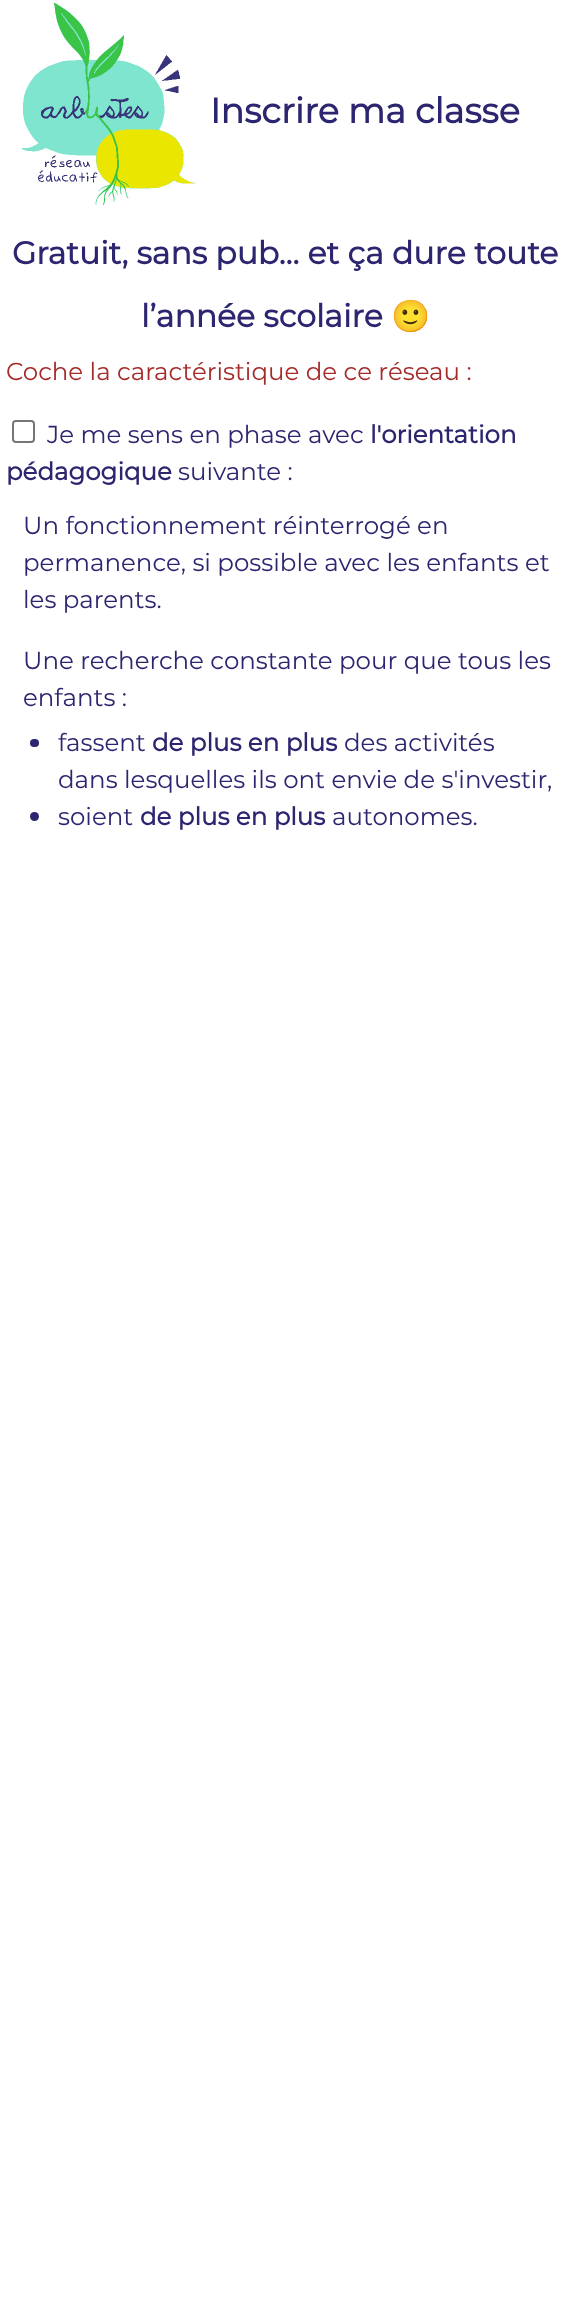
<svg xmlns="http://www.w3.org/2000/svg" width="569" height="2314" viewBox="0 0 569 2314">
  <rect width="100%" height="100%" fill="#ffffff"/>
  <image x="21" y="2" width="175" height="204" href="img1.png"/>
  <text x="210" y="123" font-family="Montserrat" font-size="35" font-weight="bold" fill="#2c256f">Inscrire ma classe</text>
  <text x="12" y="264" font-family="Montserrat" font-size="31.5" font-weight="bold" fill="#2c256f">Gratuit, sans pub… et ça dure toute</text>
  <text x="141" y="327" font-family="Montserrat" font-size="31.5" font-weight="bold" fill="#2c256f">l’année scolaire</text>
  <text x="391" y="327" font-family="Noto Color Emoji" font-size="31.5" font-weight="bold" fill="#2c256f">🙂</text>
  <text x="6" y="380" font-family="Montserrat" font-size="24.5" font-weight="100" fill="#a52b2a">Coche la caractéristique de ce réseau :</text>
  <rect x="13" y="421" width="21" height="21" rx="3" fill="none" stroke="#767676" stroke-width="2"/>
  <text x="47" y="443" font-family="Montserrat" font-size="24.5" font-weight="100" fill="#2c256f">Je me sens en phase avec</text>
  <text x="370" y="443" font-family="Montserrat" font-size="24.5" font-weight="bold" fill="#2c256f">l'orientation</text>
  <text x="6" y="480" font-family="Montserrat" font-size="24.5" font-weight="bold" fill="#2c256f">pédagogique</text>
  <text x="178" y="480" font-family="Montserrat" font-size="24.5" font-weight="100" fill="#2c256f">suivante :</text>
  <text x="23" y="534" font-family="Montserrat" font-size="24.5" font-weight="100" fill="#2c256f">Un fonctionnement réinterrogé en</text>
  <text x="23" y="571" font-family="Montserrat" font-size="24.5" font-weight="100" fill="#2c256f">permanence, si possible avec les enfants et</text>
  <text x="23" y="608" font-family="Montserrat" font-size="24.5" font-weight="100" fill="#2c256f">les parents.</text>
  <text x="23" y="669" font-family="Montserrat" font-size="24.5" font-weight="100" fill="#2c256f">Une recherche constante pour que tous les</text>
  <text x="23" y="706" font-family="Montserrat" font-size="24.5" font-weight="100" fill="#2c256f">enfants :</text>
  <rect x="30" y="739" width="9" height="8" rx="4" fill="#2c256f"/>
  <text x="58" y="751" font-family="Montserrat" font-size="24.5" font-weight="100" fill="#2c256f">fassent</text>
  <text x="152" y="751" font-family="Montserrat" font-size="24.5" font-weight="bold" fill="#2c256f">de plus en plus</text>
  <text x="344" y="751" font-family="Montserrat" font-size="24.5" font-weight="100" fill="#2c256f">des activités</text>
  <text x="58" y="788" font-family="Montserrat" font-size="24.5" font-weight="100" fill="#2c256f">dans lesquelles ils ont envie de s'investir,</text>
  <circle cx="34.5" cy="816.5" r="4.5" fill="#2c256f"/>
  <text x="58" y="825" font-family="Montserrat" font-size="24.5" font-weight="100" fill="#2c256f">soient</text>
  <text x="140" y="825" font-family="Montserrat" font-size="24.5" font-weight="bold" fill="#2c256f">de plus en plus</text>
  <text x="332" y="825" font-family="Montserrat" font-size="24.5" font-weight="100" fill="#2c256f">autonomes.</text>
</svg>
